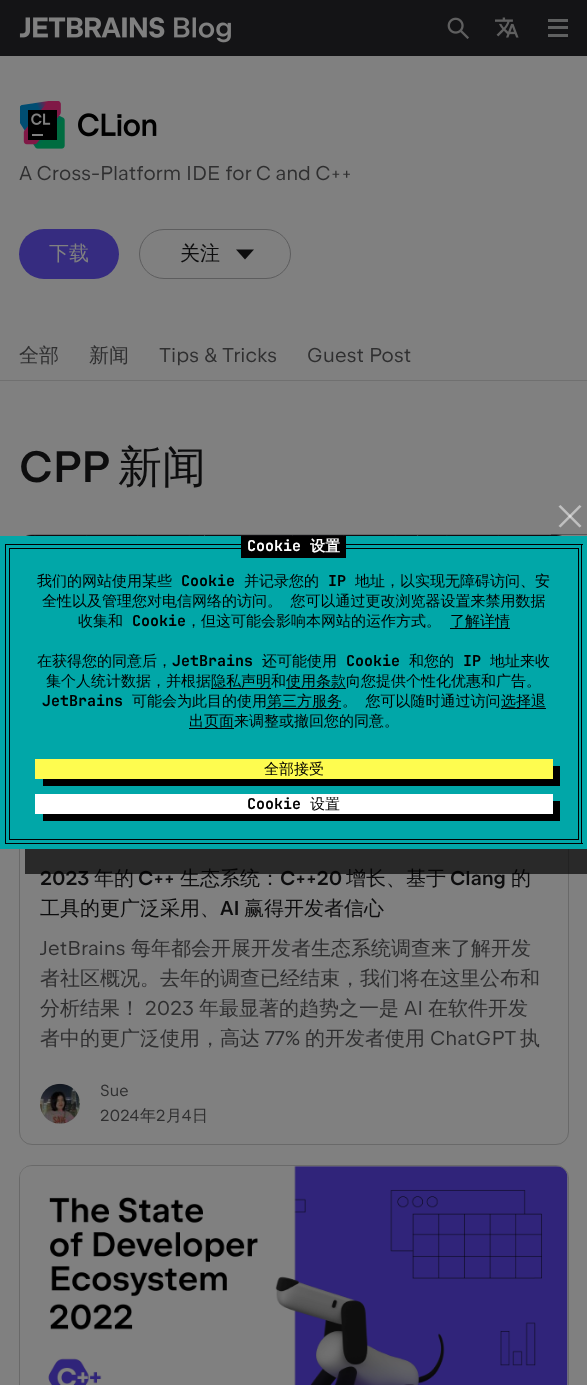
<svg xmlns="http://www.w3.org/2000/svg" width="587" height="1385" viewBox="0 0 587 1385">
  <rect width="100%" height="100%" fill="#808080"/>
  <rect x="0" y="0" width="587" height="56" fill="#141416"/>
  <image x="19" y="17" width="212" height="26" href="img1.png"/>
  <image x="447" y="17" width="22" height="22" href="img2.png"/>
  <image x="495" y="17" width="24" height="21" href="img3.png"/>
  <rect x="548" y="38" width="20" height="1" fill="#111113"/>
  <rect x="548" y="19" width="20" height="3" fill="#5f6060"/>
  <rect x="548" y="26" width="20" height="3" fill="#5f6060"/>
  <rect x="548" y="34" width="20" height="3" fill="#5f6060"/>
  <image x="20" y="101" width="137" height="48" href="img4.png"/>
  <text x="19" y="180" font-family="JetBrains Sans" font-size="20" fill="#2f2f30">A Cross-Platform IDE for C and C++</text>
  <rect x="19" y="229" width="100" height="50" rx="25" fill="#362c80"/>
  <text x="49" y="260" font-family="WenQuanYi Zen Hei" font-size="20" font-weight="500" fill="#808080">下载</text>
  <rect x="139.5" y="229.5" width="151" height="49" rx="24.5" fill="none" stroke="#5d5d5e"/>
  <text x="180" y="260" font-family="WenQuanYi Zen Hei" font-size="20" font-weight="500" fill="#0d0d0e">关注</text>
  <path d="M245 259.5L236 249.5H254Z" fill="#0d0d0e"/>
  <text x="19" y="362" font-family="WenQuanYi Zen Hei" font-size="20" font-weight="500" fill="#2f2f30">全部</text>
  <text x="89" y="362" font-family="WenQuanYi Zen Hei" font-size="20" font-weight="500" fill="#2f2f30">新闻</text>
  <text x="159" y="362" font-family="JetBrains Sans" font-size="20" fill="#2f2f30">Tips &amp; Tricks</text>
  <text x="307" y="362" font-family="JetBrains Sans" font-size="20" fill="#2f2f30">Guest Post</text>
  <rect x="0" y="380" width="587" height="1" fill="#707070"/>
  <text x="19" y="482" font-family="JetBrains Sans" font-size="44" font-weight="600" fill="#0d0d0e">CPP</text>
  <text x="118" y="482" font-family="WenQuanYi Zen Hei" font-size="44" font-weight="500" fill="#0d0d0e">新闻</text>
  <rect x="19.5" y="534.5" width="549" height="610" rx="12.5" fill="none" stroke="#696969"/>
  <image x="26" y="535" width="535" height="1" href="img5.png"/>
  <text x="40" y="885" font-family="JetBrains Sans" font-size="20" font-weight="600" fill="#0d0d0e">2023</text>
  <text x="94" y="885" font-family="WenQuanYi Zen Hei" font-size="20" font-weight="500" fill="#0d0d0e">年的</text>
  <text x="138" y="885" font-family="JetBrains Sans" font-size="20" font-weight="600" fill="#0d0d0e">C++</text>
  <text x="180" y="885" font-family="WenQuanYi Zen Hei" font-size="20" font-weight="500" fill="#0d0d0e">生态系统：</text>
  <text x="280" y="885" font-family="JetBrains Sans" font-size="20" font-weight="600" fill="#0d0d0e">C++20</text>
  <text x="346" y="885" font-family="WenQuanYi Zen Hei" font-size="20" font-weight="500" fill="#0d0d0e">增长、基于</text>
  <text x="450" y="885" font-family="JetBrains Sans" font-size="20" font-weight="600" fill="#0d0d0e">Clang</text>
  <text x="511" y="885" font-family="WenQuanYi Zen Hei" font-size="20" font-weight="500" fill="#0d0d0e">的</text>
  <text x="40" y="915" font-family="WenQuanYi Zen Hei" font-size="20" font-weight="500" fill="#0d0d0e">工具的更广泛采用、</text>
  <text x="220" y="915" font-family="JetBrains Sans" font-size="20" font-weight="600" fill="#0d0d0e">AI</text>
  <text x="244" y="915" font-family="WenQuanYi Zen Hei" font-size="20" font-weight="500" fill="#0d0d0e">赢得开发者信心</text>
  <text x="40" y="955" font-family="JetBrains Sans" font-size="20" fill="#2f2f30">JetBrains</text>
  <text x="131" y="955" font-family="WenQuanYi Zen Hei" font-size="20" font-weight="500" fill="#2f2f30">每年都会开展开发者生态系统调查来了解开发</text>
  <text x="40" y="985" font-family="WenQuanYi Zen Hei" font-size="20" font-weight="500" fill="#2f2f30">者社区概况。去年的调查已经结束，我们将在这里公布和</text>
  <text x="40" y="1015" font-family="WenQuanYi Zen Hei" font-size="20" font-weight="500" fill="#2f2f30">分析结果！</text>
  <text x="145" y="1015" font-family="JetBrains Sans" font-size="20" fill="#2f2f30">2023</text>
  <text x="199" y="1015" font-family="WenQuanYi Zen Hei" font-size="20" font-weight="500" fill="#2f2f30">年最显著的趋势之一是</text>
  <text x="404" y="1015" font-family="JetBrains Sans" font-size="20" fill="#2f2f30">AI</text>
  <text x="428" y="1015" font-family="WenQuanYi Zen Hei" font-size="20" font-weight="500" fill="#2f2f30">在软件开发</text>
  <text x="40" y="1045" font-family="WenQuanYi Zen Hei" font-size="20" font-weight="500" fill="#2f2f30">者中的更广泛使用，高达</text>
  <text x="265" y="1045" font-family="JetBrains Sans" font-size="20" fill="#2f2f30">77%</text>
  <text x="305" y="1045" font-family="WenQuanYi Zen Hei" font-size="20" font-weight="500" fill="#2f2f30">的开发者使用</text>
  <text x="430" y="1045" font-family="JetBrains Sans" font-size="20" fill="#2f2f30">ChatGPT</text>
  <text x="520" y="1045" font-family="WenQuanYi Zen Hei" font-size="20" font-weight="500" fill="#2f2f30">执</text>
  <image x="40" y="1083" width="40" height="41" href="img6.png"/>
  <text x="100" y="1096" font-family="JetBrains Sans" font-size="16" fill="#2f2f30">Sue</text>
  <text x="100" y="1121" font-family="JetBrains Sans" font-size="16" fill="#2f2f30">2024</text>
  <text x="140" y="1121" font-family="WenQuanYi Zen Hei" font-size="16" font-weight="500" fill="#2f2f30">年</text>
  <text x="156" y="1121" font-family="JetBrains Sans" font-size="16" fill="#2f2f30">2</text>
  <text x="166" y="1121" font-family="WenQuanYi Zen Hei" font-size="16" font-weight="500" fill="#2f2f30">月</text>
  <text x="182" y="1121" font-family="JetBrains Sans" font-size="16" fill="#2f2f30">4</text>
  <text x="192" y="1121" font-family="WenQuanYi Zen Hei" font-size="16" font-weight="500" fill="#2f2f30">日</text>
  <rect x="19.5" y="1165.5" width="549" height="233" rx="12.5" fill="none" stroke="#696969"/>
  <image x="20" y="1166" width="548" height="219" href="img7.png"/>
  <path d="M25 849V874H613V561H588V849Z" fill="#000000" fill-opacity="0.68"/>
  <rect x="0" y="536" width="587" height="313" fill="#01a7a8"/>
  <rect x="551" y="534" width="36" height="1" fill="#19191c" fill-opacity="0.4"/>
  <path d="M558.5 526L579.5 505L581.5 506.5L560.5 527.5Z" fill="#bfbfbf"/>
  <path d="M560.5 505L581.5 526L579.5 527.5L558.5 506.5Z" fill="#ffffff" fill-opacity="0.5"/>
  <rect x="9" y="548" width="570" height="1" fill="#000000"/>
  <rect x="578" y="548" width="1" height="292" fill="#000000"/>
  <rect x="9" y="548" width="1" height="211" fill="#000000"/>
  <rect x="5" y="544" width="578" height="1" fill="#000000"/>
  <rect x="241" y="536" width="105" height="22" fill="#000000"/>
  <text x="247" y="551" font-family="JetBrains Mono" font-size="15" font-weight="bold" fill="#ffffff">Cookie</text>
  <text x="310" y="551" font-family="WenQuanYi Zen Hei" font-size="15" font-weight="bold" fill="#ffffff">设置</text>
  <rect x="581" y="544" width="1" height="300" fill="#000000"/>
  <rect x="5" y="544" width="1" height="214" fill="#000000"/>
  <text x="37" y="586" font-family="WenQuanYi Zen Hei" font-size="15" font-weight="500" fill="#000000">我们的网站使用某些</text>
  <text x="181" y="586" font-family="JetBrains Mono" font-size="15" font-weight="bold" fill="#000000">Cookie</text>
  <text x="244" y="586" font-family="WenQuanYi Zen Hei" font-size="15" font-weight="500" fill="#000000">并记录您的</text>
  <text x="328" y="586" font-family="JetBrains Mono" font-size="15" font-weight="bold" fill="#000000">IP</text>
  <text x="355" y="586" font-family="WenQuanYi Zen Hei" font-size="15" font-weight="500" fill="#000000">地址，以实现无障碍访问、安</text>
  <text x="42" y="606" word-spacing="4" font-family="WenQuanYi Zen Hei" font-size="15" font-weight="500" fill="#000000">全性以及管理您对电信网络的访问。 您可以通过更改浏览器设置来禁用数据</text>
  <text x="78" y="626" font-family="WenQuanYi Zen Hei" font-size="15" font-weight="500" fill="#000000">收集和</text>
  <text x="132" y="626" font-family="JetBrains Mono" font-size="15" font-weight="bold" fill="#000000">Cookie</text>
  <text x="186" y="626" font-family="WenQuanYi Zen Hei" font-size="15" font-weight="500" fill="#000000">，但这可能会影响本网站的运作方式。</text>
  <text x="450" y="626" font-family="WenQuanYi Zen Hei" font-size="15" font-weight="500" fill="#000000">了解详情</text>
  <rect x="450" y="628" width="60" height="1" fill="#000000"/>
  <text x="37" y="666" font-family="WenQuanYi Zen Hei" font-size="15" font-weight="500" fill="#000000">在获得您的同意后，</text>
  <text x="172" y="666" font-family="JetBrains Mono" font-size="15" font-weight="bold" fill="#000000">JetBrains</text>
  <text x="262" y="666" font-family="WenQuanYi Zen Hei" font-size="15" font-weight="500" fill="#000000">还可能使用</text>
  <text x="346" y="666" font-family="JetBrains Mono" font-size="15" font-weight="bold" fill="#000000">Cookie</text>
  <text x="409" y="666" font-family="WenQuanYi Zen Hei" font-size="15" font-weight="500" fill="#000000">和您的</text>
  <text x="463" y="666" font-family="JetBrains Mono" font-size="15" font-weight="bold" fill="#000000">IP</text>
  <text x="490" y="666" font-family="WenQuanYi Zen Hei" font-size="15" font-weight="500" fill="#000000">地址来收</text>
  <text x="46" y="686" font-family="WenQuanYi Zen Hei" font-size="15" font-weight="500" fill="#000000">集个人统计数据，并根据隐私声明和</text>
  <rect x="286" y="688" width="60" height="1" fill="#000000"/>
  <text x="286" y="686" font-family="WenQuanYi Zen Hei" font-size="15" font-weight="500" fill="#000000">使用条款向您提供个性化优惠和广告。</text>
  <rect x="211" y="688" width="60" height="1" fill="#000000"/>
  <text x="42" y="706" font-family="JetBrains Mono" font-size="15" font-weight="bold" fill="#000000">JetBrains</text>
  <text x="132" y="706" font-family="WenQuanYi Zen Hei" font-size="15" font-weight="500" fill="#000000">可能会为此目的使用</text>
  <rect x="266" y="708" width="75" height="1" fill="#000000"/>
  <text x="267" y="706" font-family="WenQuanYi Zen Hei" font-size="15" font-weight="500" fill="#000000">第三方服务</text>
  <text x="342" y="706" word-spacing="4" font-family="WenQuanYi Zen Hei" font-size="15" font-weight="500" fill="#000000">。 您可以随时通过访问</text>
  <rect x="501" y="708" width="45" height="1" fill="#000000"/>
  <text x="501" y="706" font-family="WenQuanYi Zen Hei" font-size="15" font-weight="500" fill="#000000">选择退</text>
  <rect x="189" y="728" width="45" height="1" fill="#000000"/>
  <text x="189" y="726" font-family="WenQuanYi Zen Hei" font-size="15" font-weight="500" fill="#000000">出页面来调整或撤回您的同意。</text>
  <rect x="9" y="839" width="570" height="1" fill="#000000"/>
  <rect x="9" y="759" width="1" height="81" fill="#000000"/>
  <rect x="5" y="843" width="578" height="1" fill="#000000"/>
  <rect x="5" y="758" width="1" height="86" fill="#000000"/>
  <path d="M43 779V786H560V766H552V779Z" fill="#000000"/>
  <rect x="35" y="759" width="518" height="20" fill="#fefc4f"/>
  <text x="264" y="774" font-family="WenQuanYi Zen Hei" font-size="15" font-weight="500" fill="#000000">全部接受</text>
  <path d="M43 814V821H560V801H552V814Z" fill="#000000"/>
  <rect x="35" y="794" width="518" height="20" fill="#ffffff"/>
  <text x="247" y="809" font-family="JetBrains Mono" font-size="15" font-weight="bold" fill="#000000">Cookie</text>
  <text x="310" y="809" font-family="WenQuanYi Zen Hei" font-size="15" font-weight="500" fill="#000000">设置</text>
</svg>
